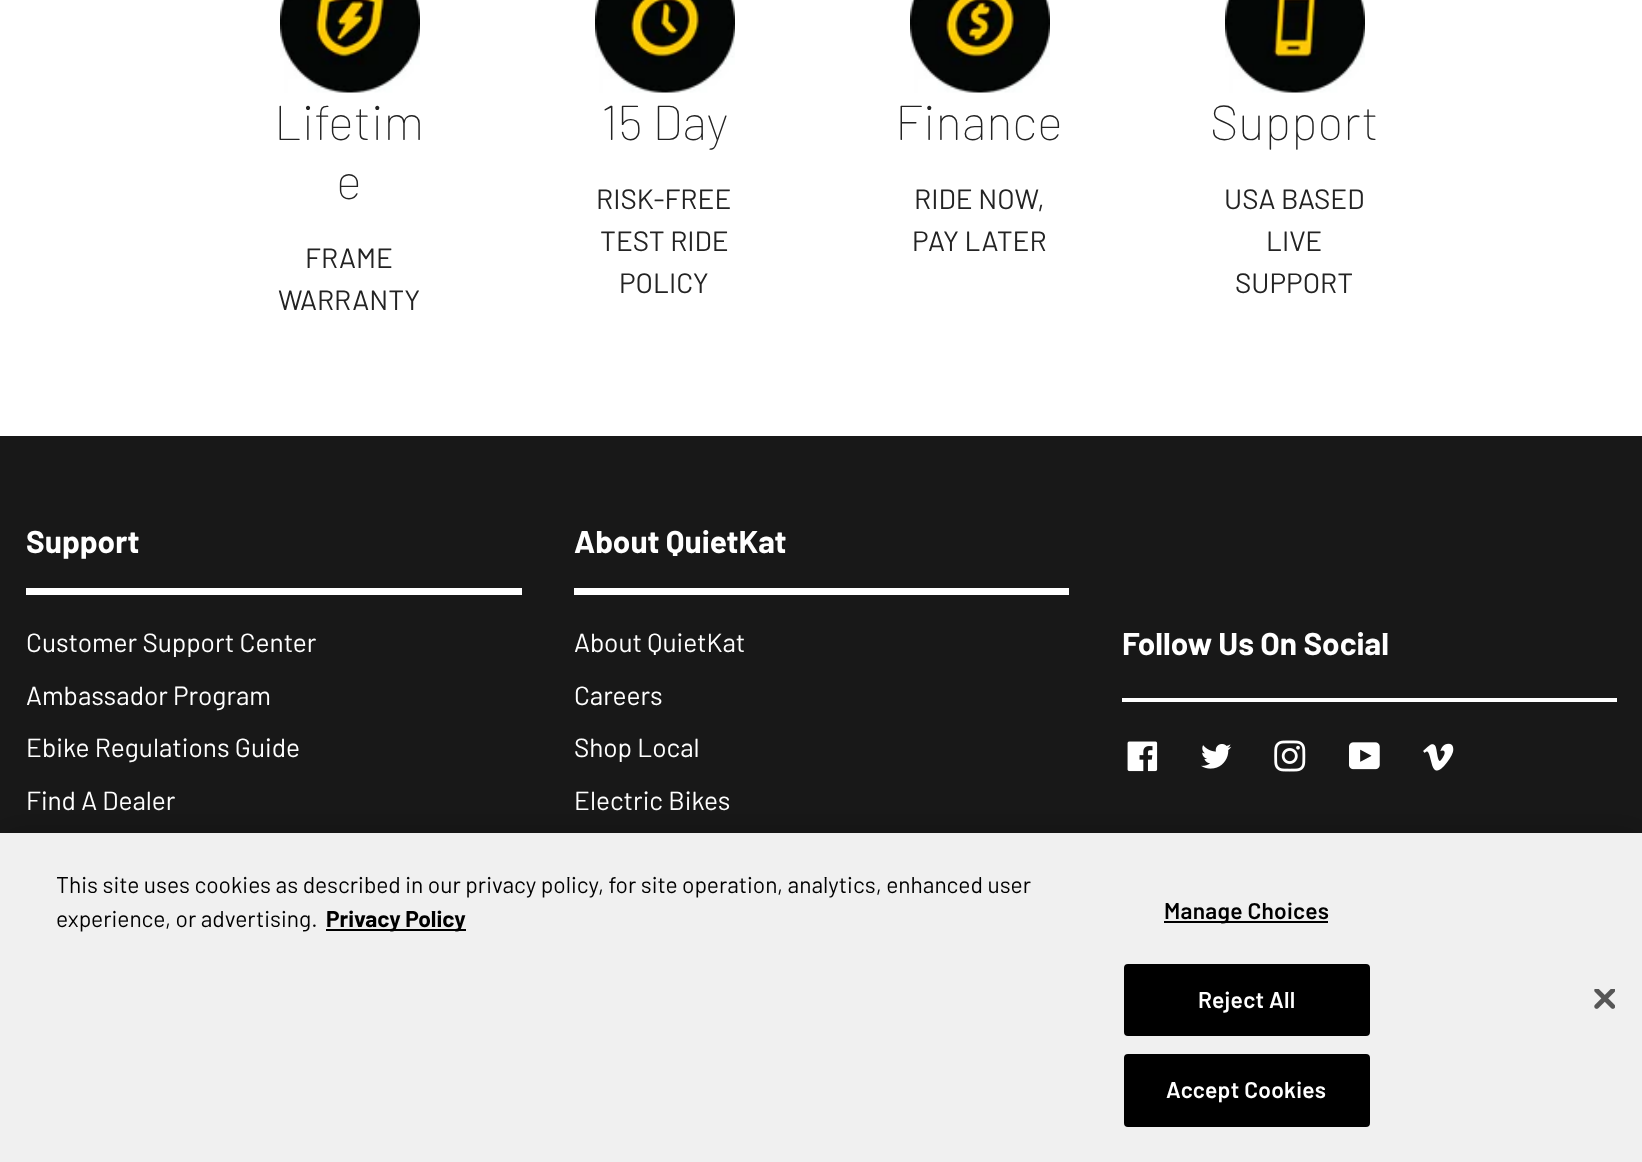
<svg xmlns="http://www.w3.org/2000/svg" width="1642" height="1162" viewBox="0 0 1642 1162">
  <defs>
    <filter id="blur1" x="-50%" y="-200%" width="200%" height="500%"><feGaussianBlur stdDeviation="16"/></filter>
  </defs>
  <rect width="100%" height="100%" fill="#ffffff"/>
  <image x="280" y="0" width="140" height="93" href="img1.png"/>
  <text x="274" y="140" font-family="Barlow" font-size="49" font-weight="100" fill="#232323">Lifetim</text>
  <text x="336" y="199" font-family="Barlow" font-size="49" font-weight="100" fill="#232323">e</text>
  <text x="305" y="268" font-family="Barlow" font-size="28" fill="#232323">FRAME</text>
  <text x="278" y="310" font-family="Barlow" font-size="28" fill="#232323">WARRANTY</text>
  <image x="595" y="0" width="140" height="93" href="img2.png"/>
  <text x="601" y="140" font-family="Barlow" font-size="49" font-weight="100" fill="#232323">15 Day</text>
  <text x="596" y="209" font-family="Barlow" font-size="28" fill="#232323">RISK-FREE</text>
  <text x="600" y="251" font-family="Barlow" font-size="28" fill="#232323">TEST RIDE</text>
  <text x="619" y="293" font-family="Barlow" font-size="28" fill="#232323">POLICY</text>
  <image x="910" y="0" width="140" height="93" href="img3.png"/>
  <text x="895" y="140" font-family="Barlow" font-size="49" font-weight="100" fill="#232323">Finance</text>
  <text x="914" y="209" font-family="Barlow" font-size="28" fill="#232323">RIDE NOW,</text>
  <text x="912" y="251" font-family="Barlow" font-size="28" fill="#232323">PAY LATER</text>
  <image x="1225" y="0" width="140" height="93" href="img4.png"/>
  <text x="1210" y="140" font-family="Barlow" font-size="49" font-weight="100" fill="#232323">Support</text>
  <text x="1224" y="209" font-family="Barlow" font-size="28" fill="#232323">USA BASED</text>
  <text x="1266" y="251" font-family="Barlow" font-size="28" fill="#232323">LIVE</text>
  <text x="1235" y="293" font-family="Barlow" font-size="28" fill="#232323">SUPPORT</text>
  <rect x="0" y="436" width="1642" height="397" fill="#181818"/>
  <rect x="26" y="588" width="496" height="7" fill="#ffffff"/>
  <text x="26" y="553" font-family="Barlow" font-size="31.5" font-weight="bold" fill="#ffffff">Support</text>
  <text x="26" y="652" font-family="Barlow" font-size="26.25" fill="#ffffff">Customer Support Center</text>
  <text x="26" y="705" font-family="Barlow" font-size="26.25" fill="#ffffff">Ambassador Program</text>
  <text x="26" y="757" font-family="Barlow" font-size="26.25" fill="#ffffff">Ebike Regulations Guide</text>
  <text x="26" y="810" font-family="Barlow" font-size="26.25" fill="#ffffff">Find A Dealer</text>
  <rect x="574" y="588" width="495" height="7" fill="#ffffff"/>
  <text x="574" y="553" font-family="Barlow" font-size="31.5" font-weight="bold" fill="#ffffff">About QuietKat</text>
  <text x="574" y="652" font-family="Barlow" font-size="26.25" fill="#ffffff">About QuietKat</text>
  <text x="574" y="705" font-family="Barlow" font-size="26.25" fill="#ffffff">Careers</text>
  <text x="574" y="757" font-family="Barlow" font-size="26.25" fill="#ffffff">Shop Local</text>
  <text x="574" y="810" font-family="Barlow" font-size="26.25" fill="#ffffff">Electric Bikes</text>
  <rect x="1122" y="698" width="495" height="4" fill="#ffffff"/>
  <text x="1122" y="655" font-family="Barlow" font-size="31.5" font-weight="bold" fill="#ffffff">Follow Us On Social</text>
  <image x="1127" y="741" width="31" height="31" href="img5.png"/>
  <image x="1201" y="744" width="31" height="25" href="img6.png"/>
  <image x="1274" y="740" width="32" height="32" href="img7.png"/>
  <image x="1349" y="742" width="31" height="28" href="img8.png"/>
  <image x="1423" y="743" width="31" height="28" href="img9.png"/>
  <rect x="0" y="833" width="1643" height="329" fill="#000000" fill-opacity="0.2" filter="url(#blur1)"/>
  <rect x="0" y="833" width="1642" height="329" fill="#f0f0f0"/>
  <text x="56" y="893" font-family="Barlow" font-size="22.75" fill="#000000">This site uses cookies as described in our privacy policy, for site operation, analytics, enhanced user</text>
  <text x="56" y="927" font-family="Barlow" font-size="22.75" fill="#000000">experience, or advertising.</text>
  <rect x="326" y="929" width="140" height="2" fill="#000000"/>
  <text x="326" y="927" font-family="Barlow" font-size="22.75" font-weight="bold" fill="#000000">Privacy Policy</text>
  <rect x="1164" y="921" width="164" height="2" fill="#000000"/>
  <text x="1164" y="919" font-family="Barlow" font-size="22.75" font-weight="600" letter-spacing="0.25" fill="#000000">Manage Choices</text>
  <rect x="1125" y="965" width="244" height="70" rx="3" fill="#000000" stroke="#000000" stroke-width="2"/>
  <text x="1198" y="1008" font-family="Barlow" font-size="22.75" font-weight="600" letter-spacing="0.25" fill="#ffffff">Reject All</text>
  <rect x="1125" y="1055" width="244" height="71" rx="3" fill="#000000" stroke="#000000" stroke-width="2"/>
  <text x="1166" y="1098" font-family="Barlow" font-size="22.75" font-weight="600" letter-spacing="0.25" fill="#ffffff">Accept Cookies</text>
  <image x="1594" y="989" width="21" height="20" href="img10.png"/>
</svg>
